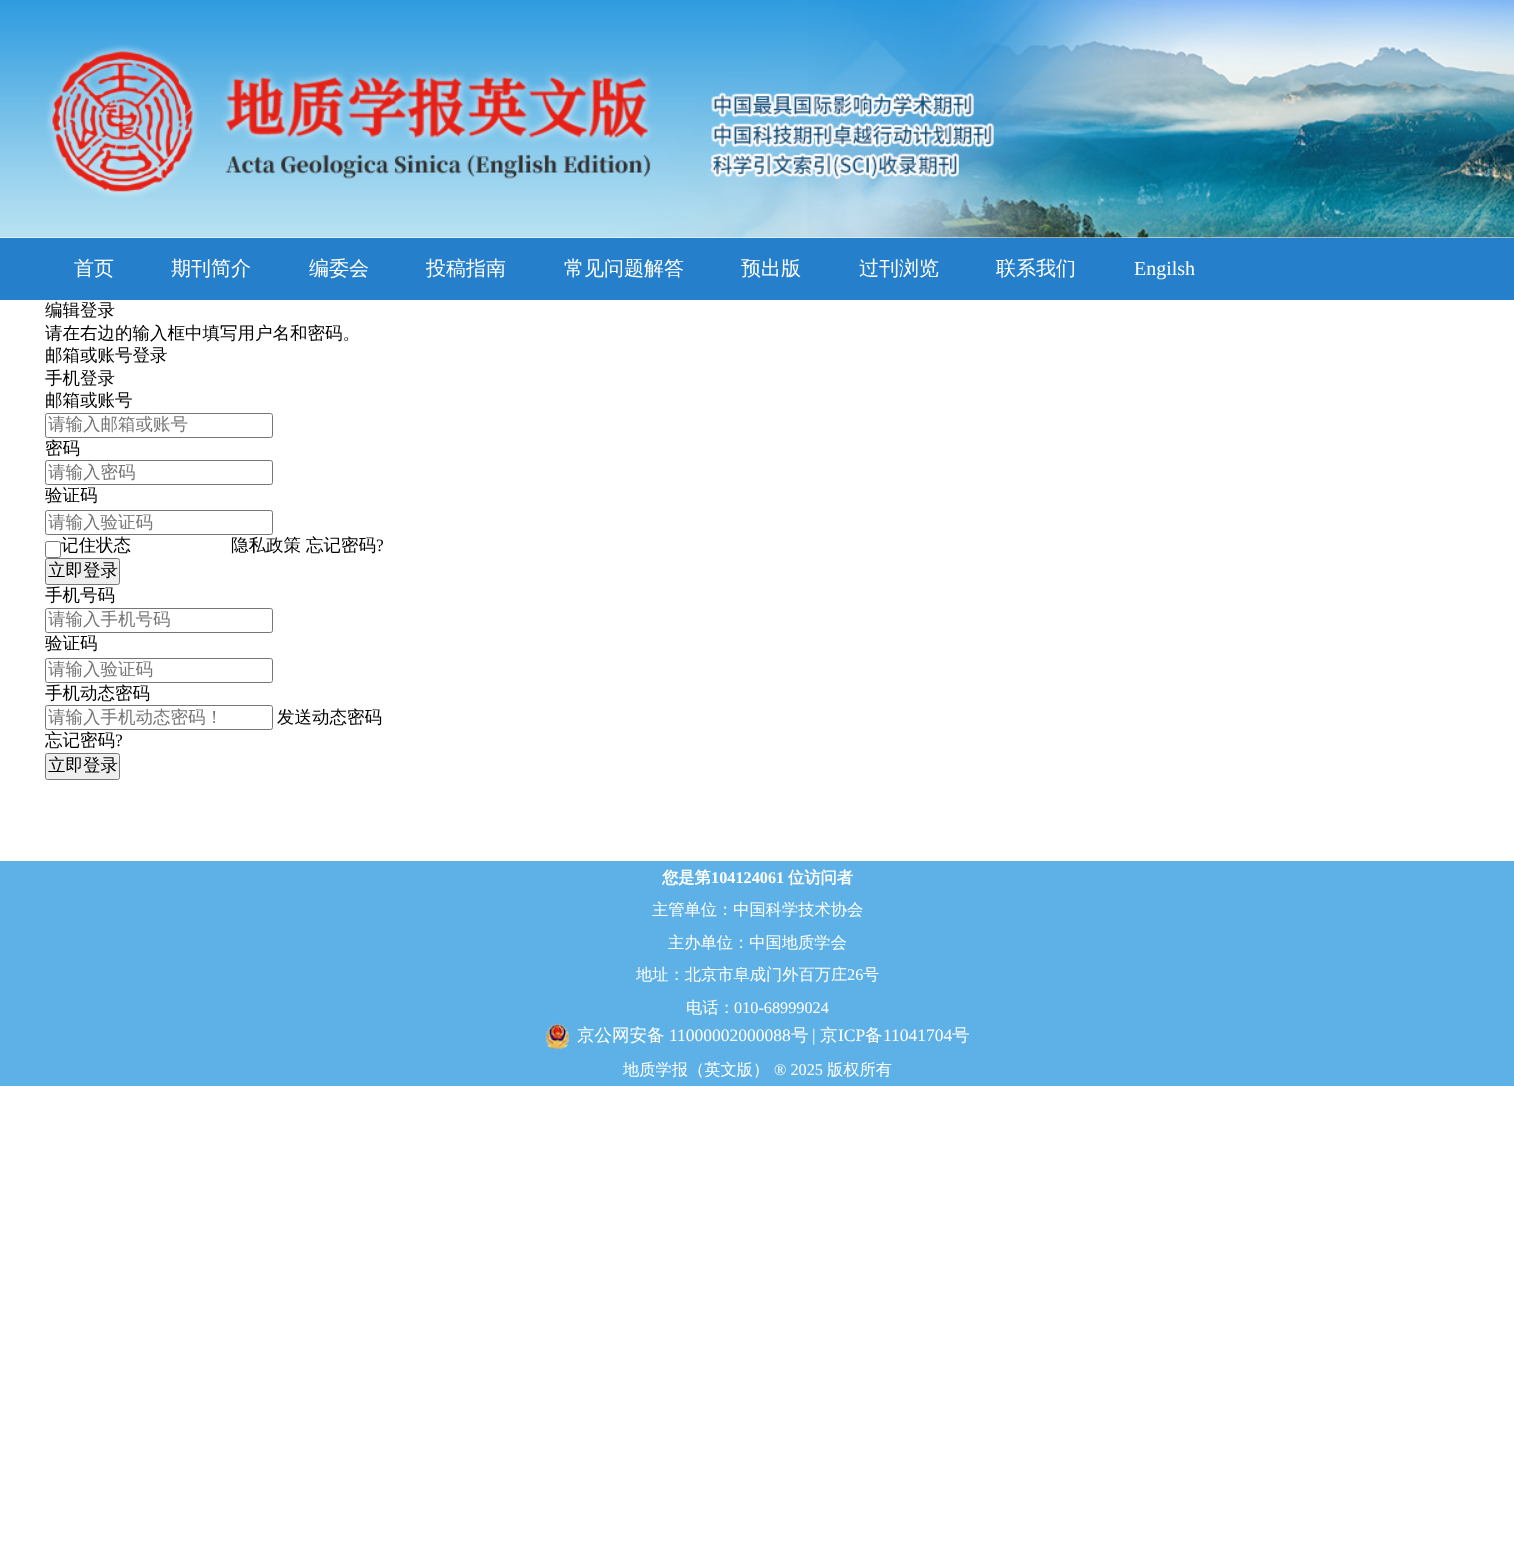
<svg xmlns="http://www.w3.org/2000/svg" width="1514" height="1558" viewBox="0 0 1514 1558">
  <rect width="100%" height="100%" fill="#ffffff"/>
  <image x="0" y="0" width="1514" height="238" href="img1.png"/>
  <rect x="0" y="238" width="1514" height="62" fill="#257fca"/>
  <text x="74" y="275" font-family="WenQuanYi Zen Hei" font-size="20" font-weight="500" fill="#ffffff">首页</text>
  <text x="171" y="275" font-family="WenQuanYi Zen Hei" font-size="20" font-weight="500" fill="#ffffff">期刊简介</text>
  <text x="309" y="275" font-family="WenQuanYi Zen Hei" font-size="20" font-weight="500" fill="#ffffff">编委会</text>
  <text x="426" y="275" font-family="WenQuanYi Zen Hei" font-size="20" font-weight="500" fill="#ffffff">投稿指南</text>
  <text x="564" y="275" font-family="WenQuanYi Zen Hei" font-size="20" font-weight="500" fill="#ffffff">常见问题解答</text>
  <text x="741" y="275" font-family="WenQuanYi Zen Hei" font-size="20" font-weight="500" fill="#ffffff">预出版</text>
  <text x="859" y="275" font-family="WenQuanYi Zen Hei" font-size="20" font-weight="500" fill="#ffffff">过刊浏览</text>
  <text x="996" y="275" font-family="WenQuanYi Zen Hei" font-size="20" font-weight="500" fill="#ffffff">联系我们</text>
  <text x="1134" y="275" font-family="Liberation Serif" font-size="20" fill="#ffffff">Engilsh</text>
  <text x="45" y="316" font-family="WenQuanYi Zen Hei" font-size="17.5" font-weight="500" fill="#000000">编辑登录</text>
  <text x="45" y="339" font-family="WenQuanYi Zen Hei" font-size="17.5" font-weight="500" fill="#000000">请在右边的输入框中填写用户名和密码。</text>
  <text x="45" y="361" font-family="WenQuanYi Zen Hei" font-size="17.5" font-weight="500" fill="#000000">邮箱或账号登录</text>
  <text x="45" y="384" font-family="WenQuanYi Zen Hei" font-size="17.5" font-weight="500" fill="#000000">手机登录</text>
  <text x="45" y="406" font-family="WenQuanYi Zen Hei" font-size="17.5" font-weight="500" fill="#000000">邮箱或账号</text>
  <rect x="45.5" y="413.5" width="227" height="24" rx="2" fill="none" stroke="#767676"/>
  <text x="48" y="430" font-family="WenQuanYi Zen Hei" font-size="17.5" font-weight="500" fill="#757575">请输入邮箱或账号</text>
  <text x="45" y="454" font-family="WenQuanYi Zen Hei" font-size="17.5" font-weight="500" fill="#000000">密码</text>
  <rect x="45.5" y="460.5" width="227" height="24" rx="2" fill="none" stroke="#767676"/>
  <text x="48" y="478" font-family="WenQuanYi Zen Hei" font-size="17.5" font-weight="500" fill="#757575">请输入密码</text>
  <text x="45" y="501" font-family="WenQuanYi Zen Hei" font-size="17.5" font-weight="500" fill="#000000">验证码</text>
  <rect x="45.5" y="510.5" width="227" height="24" rx="2" fill="none" stroke="#767676"/>
  <text x="48" y="528" font-family="WenQuanYi Zen Hei" font-size="17.5" font-weight="500" fill="#757575">请输入验证码</text>
  <rect x="45.5" y="541.5" width="15" height="16" rx="2" fill="none" stroke="#767676"/>
  <text x="61" y="551" font-family="WenQuanYi Zen Hei" font-size="17.5" font-weight="500" fill="#000000">记住状态</text>
  <text x="231" y="551" font-family="WenQuanYi Zen Hei" font-size="17.5" font-weight="500" fill="#000000">隐私政策</text>
  <text x="306" y="551" font-family="WenQuanYi Zen Hei" font-size="17.5" font-weight="500" fill="#000000">忘记密码</text>
  <text x="376" y="551" font-family="Liberation Serif" font-size="17.5" fill="#000000">?</text>
  <rect x="45.5" y="558.5" width="74" height="26" rx="2" fill="#efefef" stroke="#767676"/>
  <text x="48" y="576" font-family="WenQuanYi Zen Hei" font-size="17.5" font-weight="500" fill="#000000">立即登录</text>
  <text x="45" y="601" font-family="WenQuanYi Zen Hei" font-size="17.5" font-weight="500" fill="#000000">手机号码</text>
  <rect x="45.5" y="608.5" width="227" height="24" rx="2" fill="none" stroke="#767676"/>
  <text x="48" y="625" font-family="WenQuanYi Zen Hei" font-size="17.5" font-weight="500" fill="#757575">请输入手机号码</text>
  <text x="45" y="649" font-family="WenQuanYi Zen Hei" font-size="17.5" font-weight="500" fill="#000000">验证码</text>
  <rect x="45.5" y="658.5" width="227" height="24" rx="2" fill="none" stroke="#767676"/>
  <text x="48" y="675" font-family="WenQuanYi Zen Hei" font-size="17.5" font-weight="500" fill="#757575">请输入验证码</text>
  <text x="45" y="699" font-family="WenQuanYi Zen Hei" font-size="17.5" font-weight="500" fill="#000000">手机动态密码</text>
  <rect x="45.5" y="705.5" width="227" height="24" rx="2" fill="none" stroke="#767676"/>
  <text x="48" y="723" font-family="WenQuanYi Zen Hei" font-size="17.5" font-weight="500" fill="#757575">请输入手机动态密码！</text>
  <text x="277" y="723" font-family="WenQuanYi Zen Hei" font-size="17.5" font-weight="500" fill="#000000">发送动态密码</text>
  <text x="45" y="746" font-family="WenQuanYi Zen Hei" font-size="17.5" font-weight="500" fill="#000000">忘记密码</text>
  <text x="115" y="746" font-family="Liberation Serif" font-size="17.5" fill="#000000">?</text>
  <rect x="45.5" y="753.5" width="74" height="26" rx="2" fill="#efefef" stroke="#767676"/>
  <text x="48" y="771" font-family="WenQuanYi Zen Hei" font-size="17.5" font-weight="500" fill="#000000">立即登录</text>
  <rect x="0" y="861" width="1514" height="225" fill="#5eb1e6"/>
  <text x="662" y="883" font-family="WenQuanYi Zen Hei" font-size="16.25" font-weight="bold" fill="#ffffff">您是第</text>
  <text x="711" y="883" font-family="Liberation Serif" font-size="16.25" font-weight="bold" fill="#ffffff">104124061</text>
  <text x="788" y="883" font-family="WenQuanYi Zen Hei" font-size="16.25" font-weight="bold" fill="#ffffff">位访问者</text>
  <text x="652" y="915" font-family="WenQuanYi Zen Hei" font-size="16.25" font-weight="500" fill="#ffffff">主管单位：中国科学技术协会</text>
  <text x="668" y="948" font-family="WenQuanYi Zen Hei" font-size="16.25" font-weight="500" fill="#ffffff">主办单位：中国地质学会</text>
  <text x="636" y="980" font-family="WenQuanYi Zen Hei" font-size="16.25" font-weight="500" fill="#ffffff">地址：北京市阜成门外百万庄</text>
  <text x="847" y="980" font-family="Liberation Serif" font-size="16.25" fill="#ffffff">26</text>
  <text x="863" y="980" font-family="WenQuanYi Zen Hei" font-size="16.25" font-weight="500" fill="#ffffff">号</text>
  <text x="686" y="1013" font-family="WenQuanYi Zen Hei" font-size="16.25" font-weight="500" fill="#ffffff">电话：</text>
  <text x="734" y="1013" font-family="Liberation Serif" font-size="16.25" fill="#ffffff">010-68999024</text>
  <image x="546" y="1023" width="23" height="26" href="img2.png"/>
  <text x="577" y="1041" font-family="WenQuanYi Zen Hei" font-size="17.5" font-weight="500" fill="#ffffff">京公网安备</text>
  <text x="669" y="1041" font-family="Liberation Serif" font-size="17.5" fill="#ffffff">11000002000088</text>
  <text x="791" y="1041" font-family="WenQuanYi Zen Hei" font-size="17.5" font-weight="500" fill="#ffffff">号</text>
  <text x="812" y="1041" font-family="Liberation Serif" font-size="17.5" fill="#ffffff">|</text>
  <text x="820" y="1041" font-family="WenQuanYi Zen Hei" font-size="17.5" font-weight="500" fill="#ffffff">京</text>
  <text x="838" y="1041" font-family="Liberation Serif" font-size="17.5" fill="#ffffff">ICP</text>
  <text x="865" y="1041" font-family="WenQuanYi Zen Hei" font-size="17.5" font-weight="500" fill="#ffffff">备</text>
  <text x="883" y="1041" font-family="Liberation Serif" font-size="17.5" fill="#ffffff">11041704</text>
  <text x="952" y="1041" font-family="WenQuanYi Zen Hei" font-size="17.5" font-weight="500" fill="#ffffff">号</text>
  <text x="623" y="1075" font-family="WenQuanYi Zen Hei" font-size="16.25" font-weight="500" fill="#ffffff">地质学报（英文版）</text>
  <text x="774" y="1075" font-family="Liberation Serif" font-size="16.25" fill="#ffffff">® 2025</text>
  <text x="827" y="1075" font-family="WenQuanYi Zen Hei" font-size="16.25" font-weight="500" fill="#ffffff">版权所有</text>
</svg>
